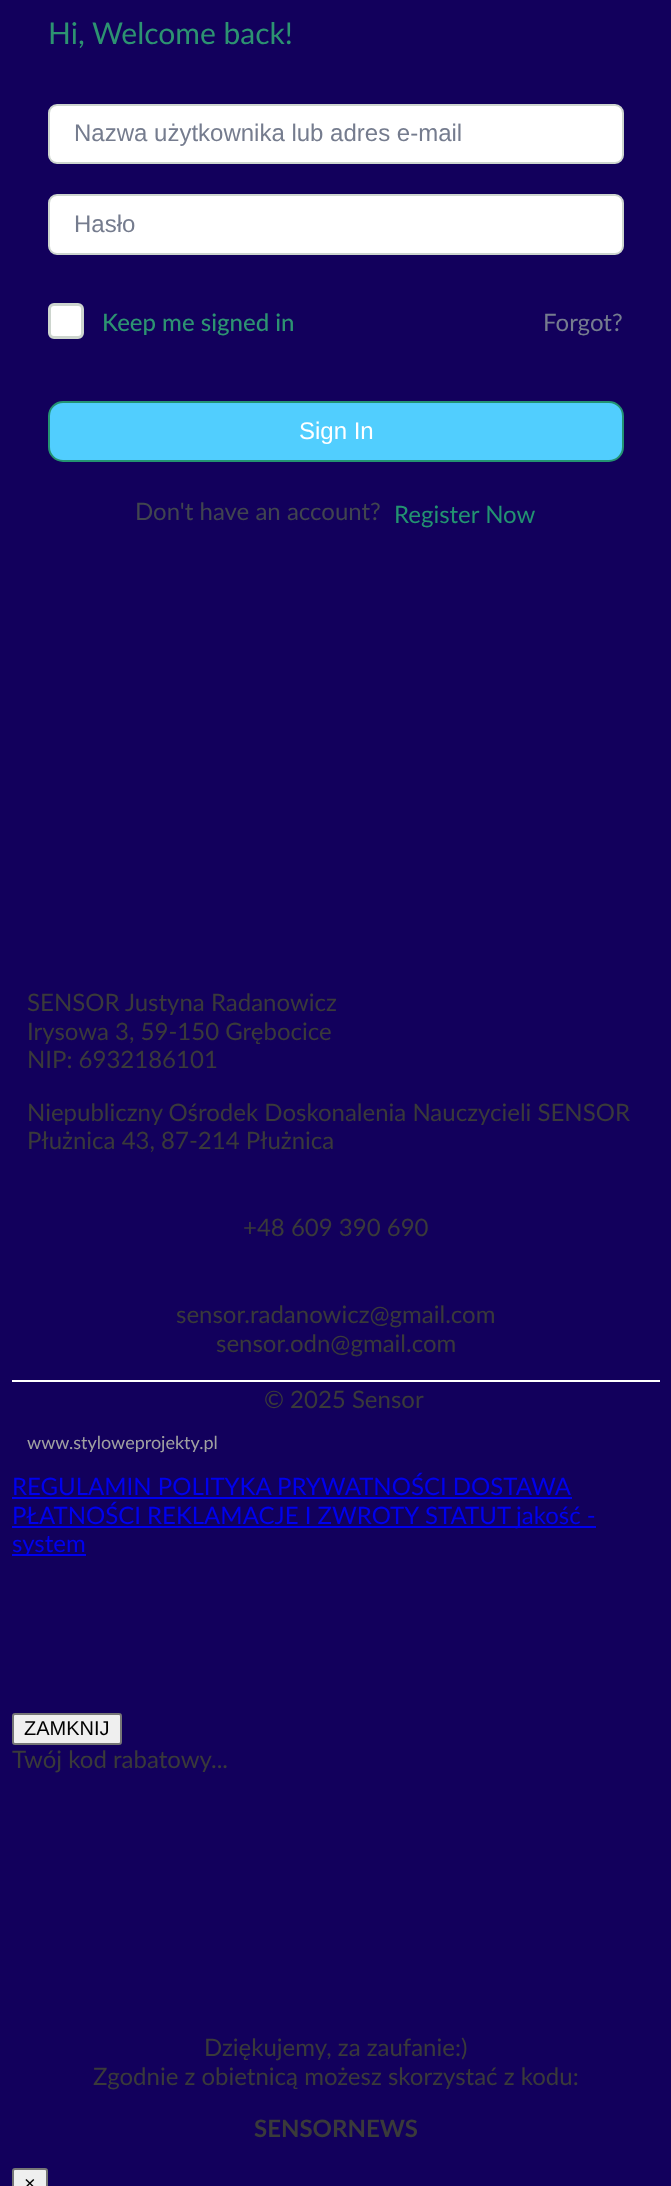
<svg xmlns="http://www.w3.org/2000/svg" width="671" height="2186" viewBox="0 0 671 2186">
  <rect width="100%" height="100%" fill="#12005c"/>
  <text x="48" y="44" font-family="Lato" font-size="30" fill="#2d9371">Hi, Welcome back!</text>
  <rect x="49" y="105" width="574" height="58" rx="8" fill="#ffffff" stroke="#cdd5ce" stroke-width="2"/>
  <text x="74" y="141" font-family="Liberation Sans" font-size="24" fill="#757c8e">Nazwa użytkownika lub adres e-mail</text>
  <rect x="49" y="195" width="574" height="59" rx="8" fill="#ffffff" stroke="#cdd5ce" stroke-width="2"/>
  <text x="74" y="232" font-family="Liberation Sans" font-size="24" fill="#757c8e">Hasło</text>
  <rect x="49.5" y="304.5" width="33" height="33" rx="4.5" fill="#ffffff" stroke="#cdd5ce" stroke-width="3"/>
  <text x="102" y="331" font-family="Lato" font-size="24" font-weight="500" fill="#2d9371">Keep me signed in</text>
  <text x="543" y="331" font-family="Lato" font-size="24" fill="#757c8e">Forgot?</text>
  <rect x="49" y="402" width="574" height="59" rx="14" fill="#51cefe" stroke="#239371" stroke-width="2"/>
  <text x="299" y="439" font-family="Liberation Sans" font-size="24" fill="#ffffff">Sign In</text>
  <text x="135" y="520" font-family="Lato" font-size="24" fill="#41454f">Don't have an account?</text>
  <text x="394" y="523" font-family="Lato" font-size="24" fill="#239371">Register Now</text>
  <text x="27" y="1011" font-family="Lato" font-size="24" fill="#3a3a3a">SENSOR Justyna Radanowicz</text>
  <text x="27" y="1040" font-family="Lato" font-size="24" fill="#3a3a3a">Irysowa 3, 59-150 Grębocice</text>
  <text x="27" y="1068" font-family="Lato" font-size="24" fill="#3a3a3a">NIP: 6932186101</text>
  <text x="27" y="1121" font-family="Lato" font-size="24" fill="#3a3a3a">Niepubliczny Ośrodek Doskonalenia Nauczycieli SENSOR</text>
  <text x="27" y="1149" font-family="Lato" font-size="24" fill="#3a3a3a">Płużnica 43, 87-214 Płużnica</text>
  <text x="243" y="1236" font-family="Lato" font-size="24" fill="#3a3a3a">+48 609 390 690</text>
  <text x="176" y="1323" font-family="Lato" font-size="24" fill="#3a3a3a">sensor.radanowicz@gmail.com</text>
  <text x="216" y="1352" font-family="Lato" font-size="24" fill="#3a3a3a">sensor.odn@gmail.com</text>
  <rect x="12" y="1380" width="648" height="2" fill="#ffffff"/>
  <text x="264" y="1408" font-family="Lato" font-size="24" fill="#3a3a3a">© 2025 Sensor</text>
  <text x="27" y="1449" font-family="Lato" font-size="18" fill="#a1a1a1">www.styloweprojekty.pl</text>
  <text x="12" y="1495" font-family="Lato" font-size="24" fill="#0000ee">REGULAMIN POLITYKA PRYWATNOŚCI DOSTAWA</text>
  <rect x="12" y="1497" width="560" height="2" fill="#0000ee"/>
  <text x="12" y="1524" font-family="Lato" font-size="24" fill="#0000ee">PŁATNOŚCI</text>
  <rect x="12" y="1526" width="584" height="2" fill="#0000ee"/>
  <text x="147" y="1524" font-family="Lato" font-size="24" fill="#0000ee">REKLAMACJE I ZWROTY</text>
  <text x="425" y="1524" font-family="Lato" font-size="24" fill="#0000ee">STATUT</text>
  <text x="516" y="1524" font-family="Lato" font-size="24" fill="#0000ee">jakość -</text>
  <rect x="12" y="1554" width="74" height="2" fill="#0000ee"/>
  <text x="12" y="1552" font-family="Lato" font-size="24" fill="#0000ee">system</text>
  <rect x="13" y="1714" width="108" height="30" rx="2" fill="#efefef" stroke="#767676" stroke-width="2"/>
  <text x="24" y="1735" font-family="Liberation Sans" font-size="20" fill="#000000">ZAMKNIJ</text>
  <text x="12" y="1768" font-family="Lato" font-size="24" fill="#3a3a3a">Twój kod rabatowy...</text>
  <text x="204" y="2056" font-family="Lato" font-size="24" fill="#3a3a3a">Dziękujemy, za zaufanie:)</text>
  <text x="93" y="2085" font-family="Lato" font-size="24" fill="#3a3a3a">Zgodnie z obietnicą możesz skorzystać z kodu:</text>
  <text x="254" y="2137" font-family="Lato" font-size="24" font-weight="bold" fill="#3a3a3a">SENSORNEWS</text>
  <rect x="13" y="2169" width="34" height="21" rx="2" fill="#efefef" stroke="#767676" stroke-width="2"/>
  <text x="24" y="2190" font-family="Liberation Sans" font-size="20" fill="#000000">×</text>
</svg>
